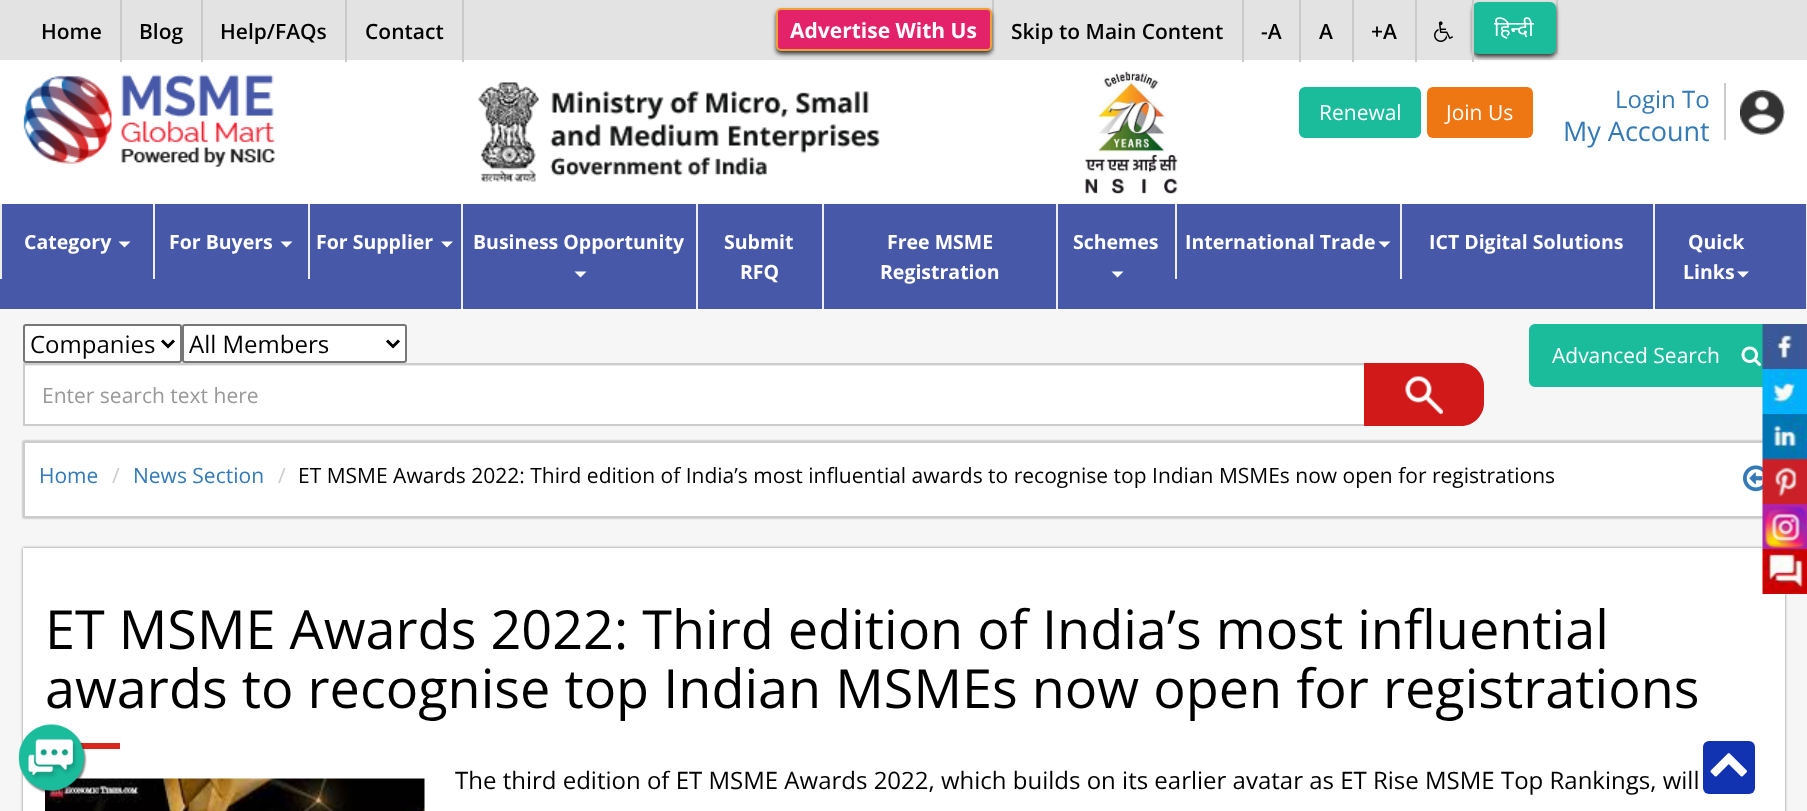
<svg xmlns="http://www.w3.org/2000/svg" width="1807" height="811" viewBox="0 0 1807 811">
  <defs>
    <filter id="blur1" x="-50%" y="-200%" width="200%" height="500%"><feGaussianBlur stdDeviation="2"/></filter>
    <filter id="blur2" x="-50%" y="-200%" width="200%" height="500%"><feGaussianBlur stdDeviation="1"/></filter>
    <filter id="blur3" x="-50%" y="-200%" width="200%" height="500%"><feGaussianBlur stdDeviation="1.5"/></filter>
  </defs>
  <rect width="100%" height="100%" fill="#f6f6f6"/>
  <rect x="0" y="0" width="1807" height="60" fill="#e3e3e3"/>
  <rect x="0" y="60" width="1807" height="144" fill="#ffffff"/>
  <rect x="120" y="0" width="2" height="62" fill="#cacaca"/>
  <text x="41" y="39" font-family="Open Sans" font-size="21" font-weight="600" fill="#000000">Home</text>
  <rect x="201" y="0" width="2" height="62" fill="#cacaca"/>
  <text x="139" y="39" font-family="Open Sans" font-size="21" font-weight="600" fill="#000000">Blog</text>
  <rect x="345" y="0" width="2" height="62" fill="#cacaca"/>
  <text x="220" y="39" font-family="Open Sans" font-size="21" font-weight="600" fill="#000000">Help/FAQs</text>
  <rect x="462" y="0" width="2" height="62" fill="#cacaca"/>
  <text x="365" y="39" font-family="Open Sans" font-size="21" font-weight="600" fill="#000000">Contact</text>
  <rect x="992" y="0" width="2" height="51" fill="#cacaca"/>
  <rect x="776" y="11" width="216" height="43" rx="5" fill="#3e3d3d" filter="url(#blur1)"/>
  <rect x="777" y="9" width="214" height="41" rx="4" fill="#e32269" stroke="#eea236" stroke-width="2"/>
  <text x="790" y="38" font-family="Open Sans" font-size="21" font-weight="bold" fill="#ffffff">Advertise With Us</text>
  <rect x="1242" y="0" width="2" height="62" fill="#cacaca"/>
  <text x="1011" y="39" font-family="Open Sans" font-size="21" font-weight="600" fill="#000000">Skip to Main Content</text>
  <rect x="1299" y="0" width="2" height="62" fill="#cacaca"/>
  <text x="1261" y="39" font-family="Open Sans" font-size="21" font-weight="600" fill="#000000">-A</text>
  <rect x="1352" y="0" width="2" height="62" fill="#cacaca"/>
  <text x="1319" y="39" font-family="Open Sans" font-size="21" font-weight="600" fill="#000000">A</text>
  <rect x="1415" y="0" width="2" height="62" fill="#cacaca"/>
  <text x="1371" y="39" font-family="Open Sans" font-size="21" font-weight="600" fill="#000000">+A</text>
  <rect x="1556" y="0" width="2" height="54" fill="#cacaca"/>
  <rect x="1473" y="5" width="83" height="52" rx="6" fill="#3e3d3d" filter="url(#blur1)"/>
  <rect x="1474" y="3" width="81" height="50" rx="5" fill="#1abc9c" stroke="#1abc9c" stroke-width="2"/>
  <rect x="1472" y="0" width="2" height="62" fill="#cacaca"/>
  <image x="1434" y="21" width="19" height="21" href="img1.png"/>
  <text x="1494" y="36" font-family="Noto Sans" font-size="21" fill="#ffffff">हिन्दी</text>
  <image x="23" y="74" width="252" height="93" href="img2.png"/>
  <image x="478" y="82" width="402" height="100" href="img3.png"/>
  <image x="1084" y="71" width="94" height="123" href="img4.png"/>
  <rect x="1300" y="88" width="120" height="49" rx="5" fill="#1abc9c" stroke="#1abc9c" stroke-width="2"/>
  <text x="1319" y="120" font-family="Open Sans" font-size="21" fill="#ffffff">Renewal</text>
  <rect x="1427" y="87" width="106" height="51" rx="6" fill="#ef7713"/>
  <text x="1446" y="120" font-family="Open Sans" font-size="21" fill="#ffffff">Join Us</text>
  <text x="1615" y="108" font-family="Open Sans" font-size="24" fill="#337ab7">Login To</text>
  <text x="1563" y="141" font-family="Open Sans" font-size="27" fill="#337ab7">My Account</text>
  <rect x="1724" y="83" width="2" height="57" fill="#cccccc"/>
  <image x="1740" y="90" width="45" height="45" href="img5.png"/>
  <rect x="0" y="204" width="1806" height="105" fill="#4658a7"/>
  <rect x="1806" y="204" width="1" height="105" fill="#eeeeee"/>
  <rect x="0" y="204" width="2" height="75" fill="#eeeeee"/>
  <text x="24" y="249" font-family="Open Sans" font-size="19.5" font-weight="bold" fill="#ffffff">Category</text>
  <path d="M118.5 241.5H130.5L124.5 247.5Z" fill="#ffffff"/>
  <rect x="153" y="204" width="2" height="75" fill="#eeeeee"/>
  <text x="169" y="249" font-family="Open Sans" font-size="19.5" font-weight="bold" fill="#ffffff">For Buyers</text>
  <path d="M280.5 241.5H292.5L286.5 247.5Z" fill="#ffffff"/>
  <rect x="308" y="204" width="2" height="75" fill="#eeeeee"/>
  <text x="316" y="249" font-family="Open Sans" font-size="19.5" font-weight="bold" fill="#ffffff">For Supplier</text>
  <path d="M441 241.5H453L447 247.5Z" fill="#ffffff"/>
  <rect x="461" y="204" width="2" height="105" fill="#eeeeee"/>
  <text x="473" y="249" font-family="Open Sans" font-size="19.5" font-weight="bold" fill="#ffffff">Business Opportunity</text>
  <path d="M574.5 271.5H586.5L580.5 277.5Z" fill="#ffffff"/>
  <rect x="696" y="204" width="2" height="105" fill="#eeeeee"/>
  <text x="724" y="249" font-family="Open Sans" font-size="19.5" font-weight="bold" fill="#ffffff">Submit</text>
  <text x="740" y="279" font-family="Open Sans" font-size="19.5" font-weight="bold" fill="#ffffff">RFQ</text>
  <rect x="822" y="204" width="2" height="105" fill="#eeeeee"/>
  <text x="887" y="249" font-family="Open Sans" font-size="19.5" font-weight="bold" fill="#ffffff">Free MSME</text>
  <text x="880" y="279" font-family="Open Sans" font-size="19.5" font-weight="bold" fill="#ffffff">Registration</text>
  <rect x="1056" y="204" width="2" height="105" fill="#eeeeee"/>
  <text x="1073" y="249" font-family="Open Sans" font-size="19.5" font-weight="bold" fill="#ffffff">Schemes</text>
  <path d="M1111.5 271.5H1123.5L1117.5 277.5Z" fill="#ffffff"/>
  <rect x="1175" y="204" width="2" height="75" fill="#eeeeee"/>
  <text x="1185" y="249" font-family="Open Sans" font-size="19.5" font-weight="bold" fill="#ffffff">International Trade</text>
  <path d="M1378.5 241.5H1390.5L1384.5 247.5Z" fill="#ffffff"/>
  <rect x="1400" y="204" width="2" height="75" fill="#eeeeee"/>
  <text x="1429" y="249" font-family="Open Sans" font-size="19.5" font-weight="bold" fill="#ffffff">ICT Digital Solutions</text>
  <rect x="1653" y="204" width="2" height="105" fill="#eeeeee"/>
  <text x="1688" y="249" font-family="Open Sans" font-size="19.5" font-weight="bold" fill="#ffffff">Quick</text>
  <text x="1683" y="279" font-family="Open Sans" font-size="19.5" font-weight="bold" fill="#ffffff">Links</text>
  <path d="M1737 271.5H1749L1743 277.5Z" fill="#ffffff"/>
  <rect x="24" y="325" width="157" height="37" rx="2" fill="#ffffff" stroke="#767676" stroke-width="2"/>
  <path d="M162 340.5L168 346.5L174 340.5" fill="none" stroke="#000000" stroke-width="3"/>
  <text x="30" y="353" font-family="Open Sans" font-size="24" fill="#000000">Companies</text>
  <rect x="183" y="325" width="223" height="37" rx="2" fill="#ffffff" stroke="#767676" stroke-width="2"/>
  <path d="M387 340.5L393 346.5L399 340.5" fill="none" stroke="#000000" stroke-width="3"/>
  <text x="189" y="353" font-family="Open Sans" font-size="24" fill="#000000">All Members</text>
  <path d="M23 363H1461C1473.5 363 1484 373.5 1484 386V403C1484 415.5 1473.5 426 1461 426H23Z" fill="#ffffff"/>
  <path d="M24 366H1461C1473 366 1482 375 1482 387C1482 375 1473 365 1461 365H24Z" fill="#ececec"/>
  <path d="M24 364H1461C1473 364 1483 374 1483 386V403C1483 415 1473 425 1461 425H24Z" fill="none" stroke="#cccccc" stroke-width="2"/>
  <text x="42" y="403" font-family="Open Sans" font-size="21" fill="#999999">Enter search text here</text>
  <path d="M1364 363H1461C1473.5 363 1484 373.5 1484 386V403C1484 415.5 1473.5 426 1461 426H1364Z" fill="#d11919"/>
  <image x="1405" y="376" width="38" height="38" href="img6.png"/>
  <rect x="1530" y="325" width="254" height="61" rx="5" fill="#1abc9c" stroke="#1abc9c" stroke-width="2"/>
  <text x="1552" y="363" font-family="Open Sans" font-size="21" fill="#ffffff">Advanced Search</text>
  <image x="1741" y="346" width="20" height="20" href="img7.png"/>
  <image x="1762" y="324" width="45" height="45" href="img8.png"/>
  <image x="1762" y="369" width="45" height="45" href="img9.png"/>
  <rect x="23" y="441" width="1762" height="77" fill="#000000" fill-opacity="0.4" filter="url(#blur2)"/>
  <rect x="25" y="443" width="1738" height="73" fill="#ffffff"/>
  <rect x="24" y="442" width="1760" height="75" fill="none" stroke="#cccccc" stroke-width="2"/>
  <image x="1762" y="414" width="45" height="45" href="img10.png"/>
  <rect x="1797" y="459" width="10" height="45" fill="#cb2027"/>
  <image x="1743" y="465" width="20" height="27" href="img14.png"/>
  <image x="1762" y="459" width="35" height="45" href="img11.png"/>
  <rect x="23" y="548" width="1762" height="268" fill="#000000" fill-opacity="0.5" filter="url(#blur3)"/>
  <rect x="23" y="548" width="1762" height="263" fill="#ffffff"/>
  <image x="1762" y="504" width="45" height="45" href="img12.png"/>
  <image x="1762" y="549" width="45" height="45" href="img13.png"/>
  <text x="39" y="483" font-family="Open Sans" font-size="21" fill="#337ab7">Home</text>
  <text x="112" y="483" font-family="Open Sans" font-size="21" fill="#cccccc">/</text>
  <text x="133" y="483" font-family="Open Sans" font-size="21" fill="#337ab7">News Section</text>
  <text x="278" y="483" font-family="Open Sans" font-size="21" fill="#cccccc">/</text>
  <text x="298" y="483" font-family="Open Sans" font-size="21" fill="#000000">ET MSME Awards 2022: Third edition of India’s most influential awards to recognise top Indian MSMEs now open for registrations</text>
  <text x="45" y="649" font-family="Open Sans" font-size="54" fill="#000000">ET MSME Awards 2022: Third edition of India’s most influential</text>
  <text x="45" y="708" font-family="Open Sans" font-size="54" fill="#000000">awards to recognise top Indian MSMEs now open for registrations</text>
  <rect x="80" y="743" width="40" height="6" fill="#d8261c"/>
  <image x="45" y="778" width="380" height="33" href="img15.png"/>
  <text x="455" y="789" font-family="Open Sans" font-size="24" fill="#000000">The third edition of ET MSME Awards 2022, which builds on its earlier avatar as ET Rise MSME Top Rankings, will</text>
  <image x="18" y="724" width="69" height="70" href="img16.png"/>
  <rect x="1703" y="741" width="52" height="53" rx="6" fill="#1133b1"/>
  <image x="1710" y="753" width="37" height="24" href="img17.png"/>
</svg>
